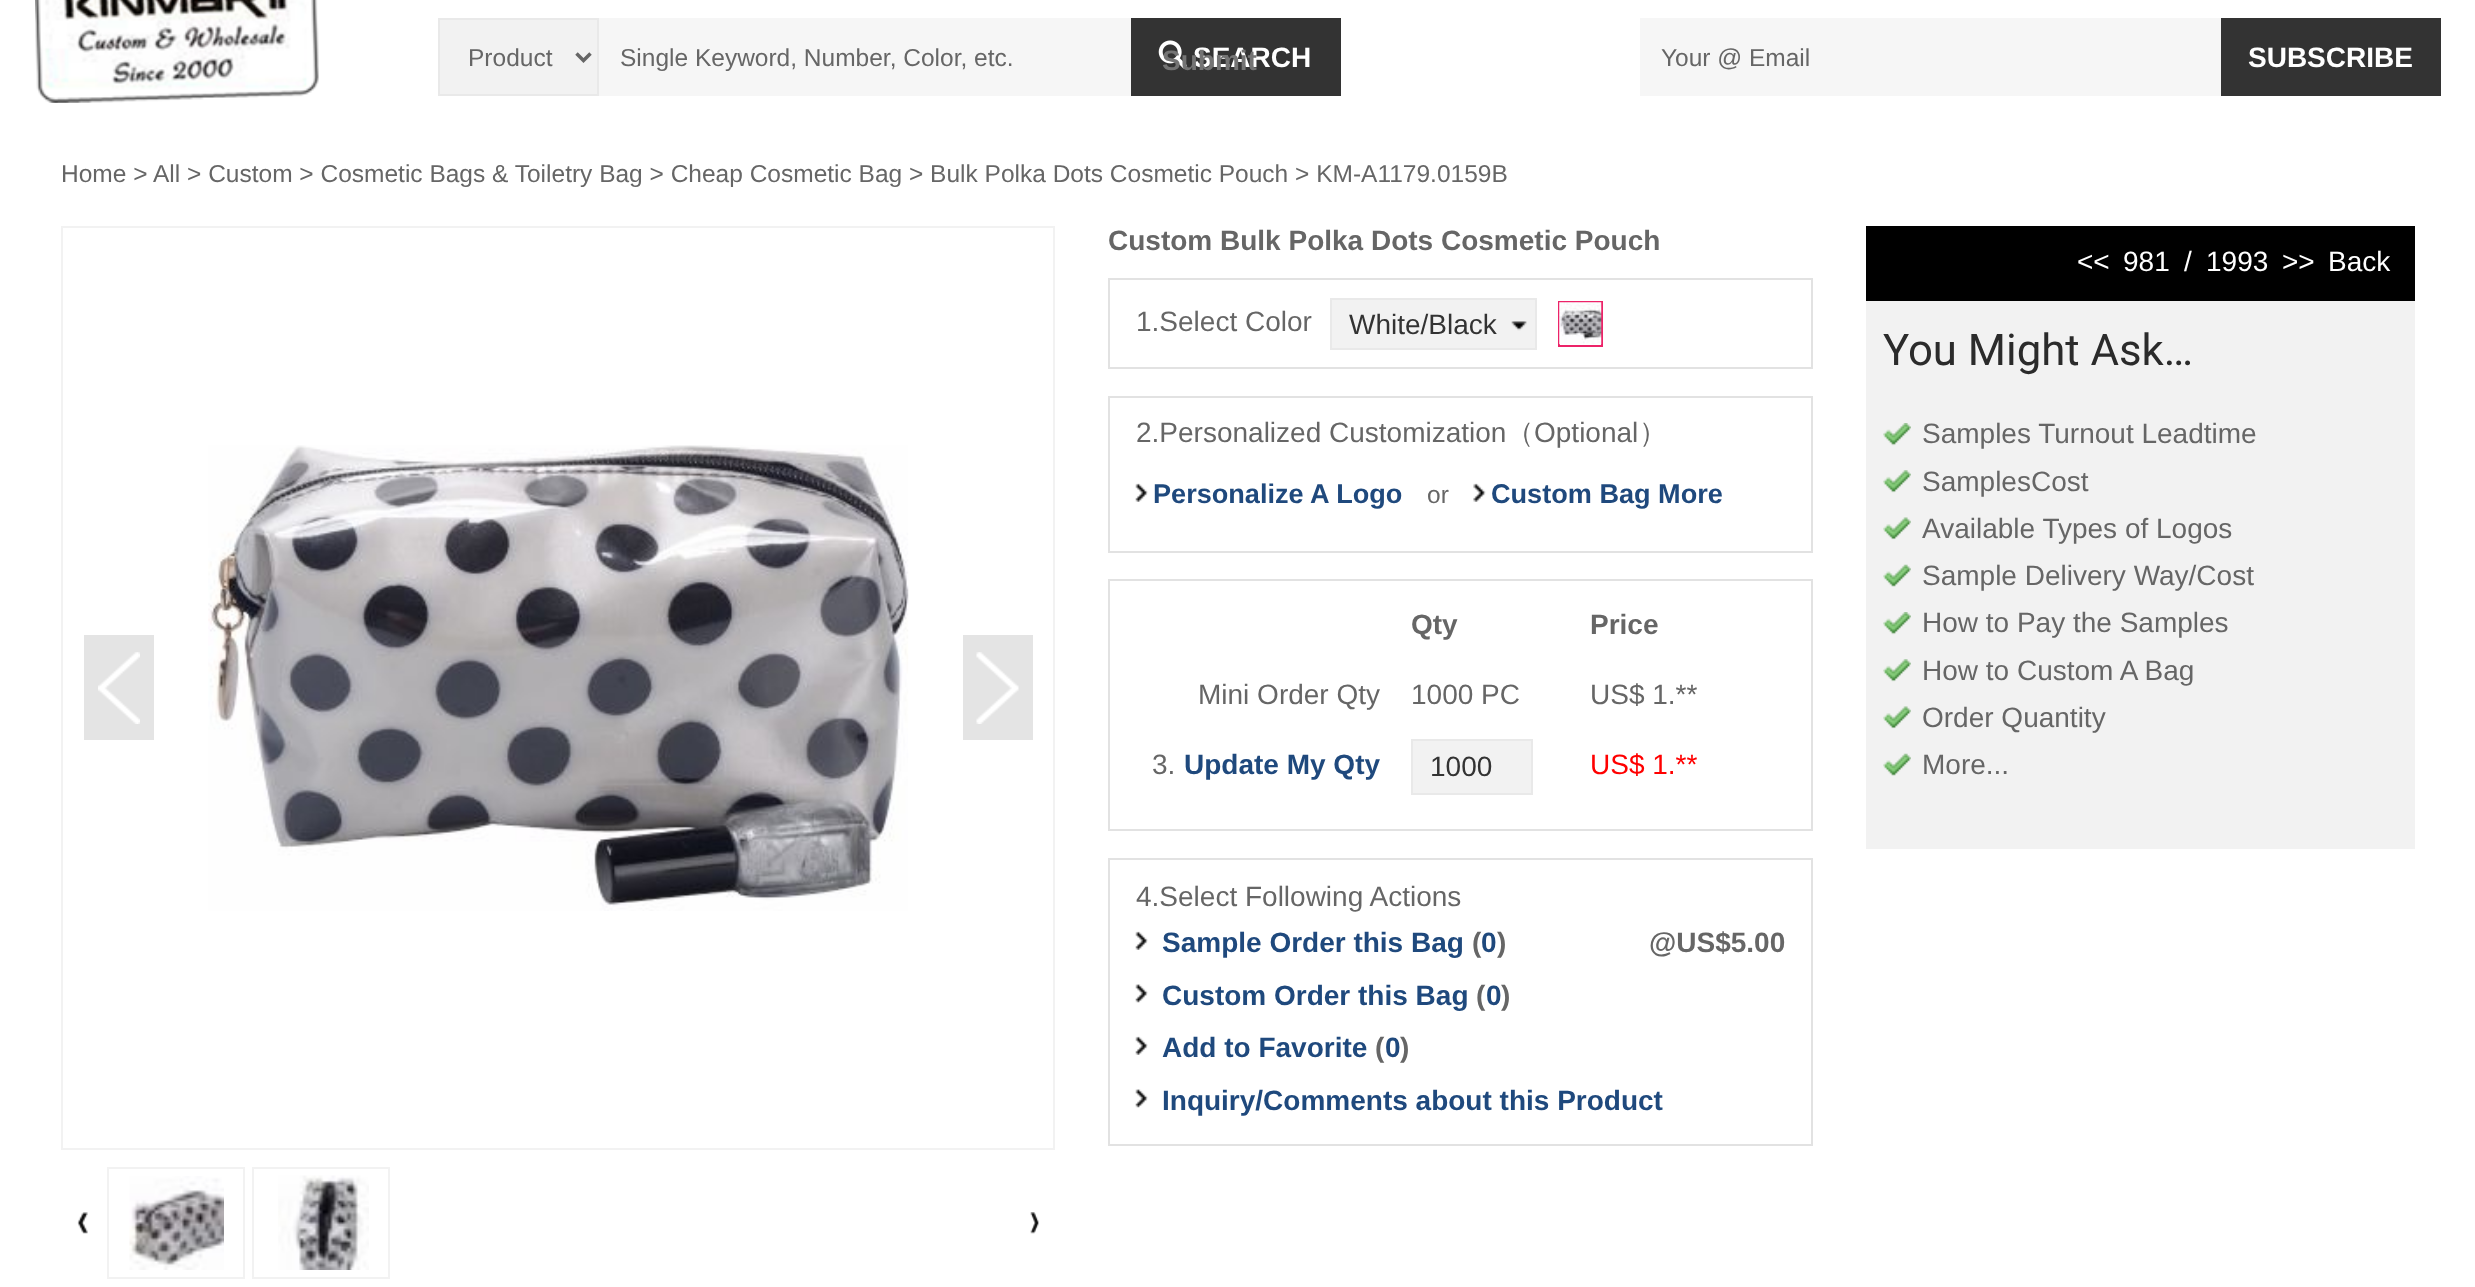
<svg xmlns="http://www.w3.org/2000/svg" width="2475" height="1287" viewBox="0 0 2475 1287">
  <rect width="100%" height="100%" fill="#ffffff"/>
  <image x="35" y="0" width="284" height="103" href="img1.png"/>
  <rect x="439" y="19" width="159" height="76" fill="#f2f2f2" stroke="#e9e9e9" stroke-width="2"/>
  <path d="M576.5 53.5L583.5 60.5L590.5 53.5" fill="none" stroke="#666666" stroke-width="3.5"/>
  <text x="468" y="66" font-family="Liberation Sans" font-size="24.5" fill="#666666">Product</text>
  <rect x="599" y="18" width="532" height="78" fill="#f6f6f6"/>
  <text x="620" y="66" font-family="Liberation Sans" font-size="24.5" fill="#666666">Single Keyword, Number, Color, etc.</text>
  <rect x="1131" y="18" width="210" height="78" fill="#333333"/>
  <image x="1158" y="40" width="29" height="29" href="img2.png"/>
  <text x="1193" y="67" font-family="Liberation Sans" font-size="28" font-weight="bold" fill="#ffffff">SEARCH</text>
  <text x="1162" y="70" font-family="Liberation Sans" font-size="28" font-weight="bold" fill="#747474">Submit</text>
  <rect x="1640" y="18" width="581" height="78" fill="#f6f6f6"/>
  <text x="1661" y="66" font-family="Liberation Sans" font-size="24.5" fill="#666666">Your @ Email</text>
  <rect x="2221" y="18" width="220" height="78" fill="#333333"/>
  <text x="2248" y="67" font-family="Liberation Sans" font-size="28" font-weight="bold" fill="#ffffff">SUBSCRIBE</text>
  <text x="61" y="182" font-family="Liberation Sans" font-size="24.5" fill="#666666">Home &gt;</text>
  <text x="153" y="182" font-family="Liberation Sans" font-size="24.5" fill="#666666">All &gt; Custom &gt; Cosmetic Bags &amp; Toiletry Bag &gt; Cheap Cosmetic Bag &gt; Bulk Polka Dots Cosmetic Pouch &gt; KM-A1179.0159B</text>
  <rect x="62" y="227" width="992" height="922" fill="none" stroke="#f2f2f2" stroke-width="2"/>
  <rect x="84" y="635" width="70" height="105" fill="#e4e4e4"/>
  <image x="98" y="652" width="42" height="72" href="img3.png"/>
  <image x="208" y="445" width="701" height="466" href="img4.png"/>
  <rect x="963" y="635" width="70" height="105" fill="#e4e4e4"/>
  <image x="976" y="652" width="43" height="72" href="img5.png"/>
  <image x="77" y="1212" width="11" height="22" href="img6.png"/>
  <rect x="108" y="1168" width="136" height="110" fill="none" stroke="#f2f2f2" stroke-width="2"/>
  <image x="129" y="1176" width="95" height="94" href="img7.png"/>
  <rect x="253" y="1168" width="136" height="110" fill="none" stroke="#f2f2f2" stroke-width="2"/>
  <image x="278" y="1175" width="91" height="95" href="img8.png"/>
  <image x="1030" y="1212" width="9" height="22" href="img9.png"/>
  <text x="1108" y="250" font-family="Liberation Sans" font-size="28" font-weight="bold" fill="#666666">Custom Bulk Polka Dots Cosmetic Pouch</text>
  <rect x="1109" y="279" width="703" height="89" fill="none" stroke="#e2e2e2" stroke-width="2"/>
  <text x="1136" y="331" font-family="Liberation Sans" font-size="28" fill="#666666">1.Select Color</text>
  <rect x="1332" y="300" width="203" height="48" fill="#f2f2f2"/>
  <image x="1511" y="321" width="16" height="10" href="img10.png"/>
  <rect x="1331" y="299" width="205" height="50" fill="none" stroke="#e9e9e9" stroke-width="2"/>
  <text x="1349" y="334" font-family="Liberation Sans" font-size="28" fill="#333333">White/Black</text>
  <rect x="1559" y="302" width="43" height="44" fill="none" stroke="#ec2368" stroke-width="2"/>
  <image x="1559" y="302" width="43" height="43" href="img11.png"/>
  <rect x="1109" y="397" width="703" height="155" fill="none" stroke="#e2e2e2" stroke-width="2"/>
  <text x="1136" y="442" font-family="Liberation Sans" font-size="28" fill="#666666">2.Personalized Customization</text>
  <text x="1506" y="442" font-family="WenQuanYi Zen Hei" font-size="28" font-weight="500" fill="#666666">（</text>
  <text x="1534" y="442" font-family="Liberation Sans" font-size="28" fill="#666666">Optional</text>
  <text x="1639" y="442" font-family="WenQuanYi Zen Hei" font-size="28" font-weight="500" fill="#666666">）</text>
  <image x="1135" y="483" width="13" height="19" href="img12.png"/>
  <text x="1153" y="503" font-family="Liberation Sans" font-size="27.1" font-weight="bold" fill="#1f497d">Personalize A Logo</text>
  <text x="1427" y="503" font-family="Liberation Sans" font-size="24.5" fill="#666666">or</text>
  <image x="1473" y="483" width="13" height="19" href="img13.png"/>
  <text x="1491" y="503" font-family="Liberation Sans" font-size="27.1" font-weight="bold" fill="#1f497d">Custom Bag More</text>
  <rect x="1109" y="580" width="703" height="250" fill="none" stroke="#e2e2e2" stroke-width="2"/>
  <text x="1411" y="634" font-family="Liberation Sans" font-size="28" font-weight="bold" fill="#666666">Qty</text>
  <text x="1590" y="634" font-family="Liberation Sans" font-size="28" font-weight="bold" fill="#666666">Price</text>
  <text x="1198" y="704" font-family="Liberation Sans" font-size="28" fill="#666666">Mini Order Qty</text>
  <text x="1411" y="704" font-family="Liberation Sans" font-size="28" fill="#666666">1000 PC</text>
  <text x="1590" y="704" font-family="Liberation Sans" font-size="28" fill="#666666">US$ 1.**</text>
  <text x="1152" y="774" font-family="Liberation Sans" font-size="28" fill="#666666">3.</text>
  <text x="1184" y="774" font-family="Liberation Sans" font-size="28" font-weight="bold" fill="#1f497d">Update My Qty</text>
  <rect x="1412" y="740" width="120" height="54" fill="#f2f2f2" stroke="#e9e9e9" stroke-width="2"/>
  <text x="1430" y="776" font-family="Liberation Sans" font-size="28" fill="#333333">1000</text>
  <text x="1590" y="774" font-family="Liberation Sans" font-size="28" fill="#ff0000">US$ 1.**</text>
  <rect x="1109" y="859" width="703" height="286" fill="none" stroke="#e2e2e2" stroke-width="2"/>
  <text x="1136" y="906" font-family="Liberation Sans" font-size="28" fill="#666666">4.Select Following Actions</text>
  <image x="1135" y="931" width="13" height="19" href="img12.png"/>
  <text x="1162" y="952" font-family="Liberation Sans" font-size="28" font-weight="bold" fill="#1f497d">Sample Order this Bag</text>
  <text x="1472" y="952" font-family="Liberation Sans" font-size="28" font-weight="bold" fill="#666666">(</text>
  <text x="1481" y="952" font-family="Liberation Sans" font-size="28" font-weight="bold" fill="#1f497d">0</text>
  <text x="1497" y="952" font-family="Liberation Sans" font-size="28" font-weight="bold" fill="#666666">)</text>
  <text x="1649" y="952" font-family="Liberation Sans" font-size="28" font-weight="bold" fill="#666666">@US$5.00</text>
  <image x="1135" y="984" width="13" height="19" href="img14.png"/>
  <text x="1162" y="1005" font-family="Liberation Sans" font-size="28" font-weight="bold" fill="#1f497d">Custom Order this Bag</text>
  <text x="1476" y="1005" font-family="Liberation Sans" font-size="28" font-weight="bold" fill="#666666">(</text>
  <text x="1486" y="1005" font-family="Liberation Sans" font-size="28" font-weight="bold" fill="#1f497d">0</text>
  <text x="1501" y="1005" font-family="Liberation Sans" font-size="28" font-weight="bold" fill="#666666">)</text>
  <image x="1135" y="1036" width="13" height="19" href="img12.png"/>
  <text x="1162" y="1057" font-family="Liberation Sans" font-size="28" font-weight="bold" fill="#1f497d">Add to Favorite</text>
  <text x="1375" y="1057" font-family="Liberation Sans" font-size="28" font-weight="bold" fill="#666666">(</text>
  <text x="1385" y="1057" font-family="Liberation Sans" font-size="28" font-weight="bold" fill="#1f497d">0</text>
  <text x="1400" y="1057" font-family="Liberation Sans" font-size="28" font-weight="bold" fill="#666666">)</text>
  <image x="1135" y="1089" width="13" height="19" href="img14.png"/>
  <text x="1162" y="1110" font-family="Liberation Sans" font-size="28" font-weight="bold" fill="#1f497d">Inquiry/Comments about this Product</text>
  <rect x="1866" y="226" width="549" height="75" fill="#000000"/>
  <text x="2077" y="271" font-family="Liberation Sans" font-size="28" fill="#ffffff">&lt;&lt;</text>
  <text x="2123" y="271" font-family="Liberation Sans" font-size="28" fill="#ffffff">981</text>
  <text x="2184" y="271" font-family="Liberation Sans" font-size="28" fill="#ffffff">/</text>
  <text x="2206" y="271" font-family="Liberation Sans" font-size="28" fill="#ffffff">1993</text>
  <text x="2282" y="271" font-family="Liberation Sans" font-size="28" fill="#ffffff">&gt;&gt;</text>
  <text x="2328" y="271" font-family="Liberation Sans" font-size="28" fill="#ffffff">Back</text>
  <rect x="1866" y="301" width="549" height="548" fill="#f2f2f2"/>
  <text x="1883" y="365" font-family="Roboto" font-size="43.75" fill="#2b2b2b">You Might Ask…</text>
  <image x="1883" y="423" width="28" height="23" href="img15.png"/>
  <text x="1922" y="443" font-family="Liberation Sans" font-size="28" fill="#666666">Samples Turnout Leadtime</text>
  <image x="1883" y="470" width="28" height="23" href="img16.png"/>
  <text x="1922" y="491" font-family="Liberation Sans" font-size="28" fill="#666666">SamplesCost</text>
  <image x="1883" y="517" width="28" height="23" href="img17.png"/>
  <text x="1922" y="538" font-family="Liberation Sans" font-size="28" fill="#666666">Available Types of Logos</text>
  <image x="1883" y="564" width="28" height="23" href="img18.png"/>
  <text x="1922" y="585" font-family="Liberation Sans" font-size="28" fill="#666666">Sample Delivery Way/Cost</text>
  <image x="1883" y="612" width="28" height="23" href="img15.png"/>
  <text x="1922" y="632" font-family="Liberation Sans" font-size="28" fill="#666666">How to Pay the Samples</text>
  <image x="1883" y="659" width="28" height="23" href="img16.png"/>
  <text x="1922" y="680" font-family="Liberation Sans" font-size="28" fill="#666666">How to Custom A Bag</text>
  <image x="1883" y="706" width="28" height="23" href="img17.png"/>
  <text x="1922" y="727" font-family="Liberation Sans" font-size="28" fill="#666666">Order Quantity</text>
  <image x="1883" y="753" width="28" height="23" href="img18.png"/>
  <text x="1922" y="774" font-family="Liberation Sans" font-size="28" fill="#666666">More...</text>
</svg>
